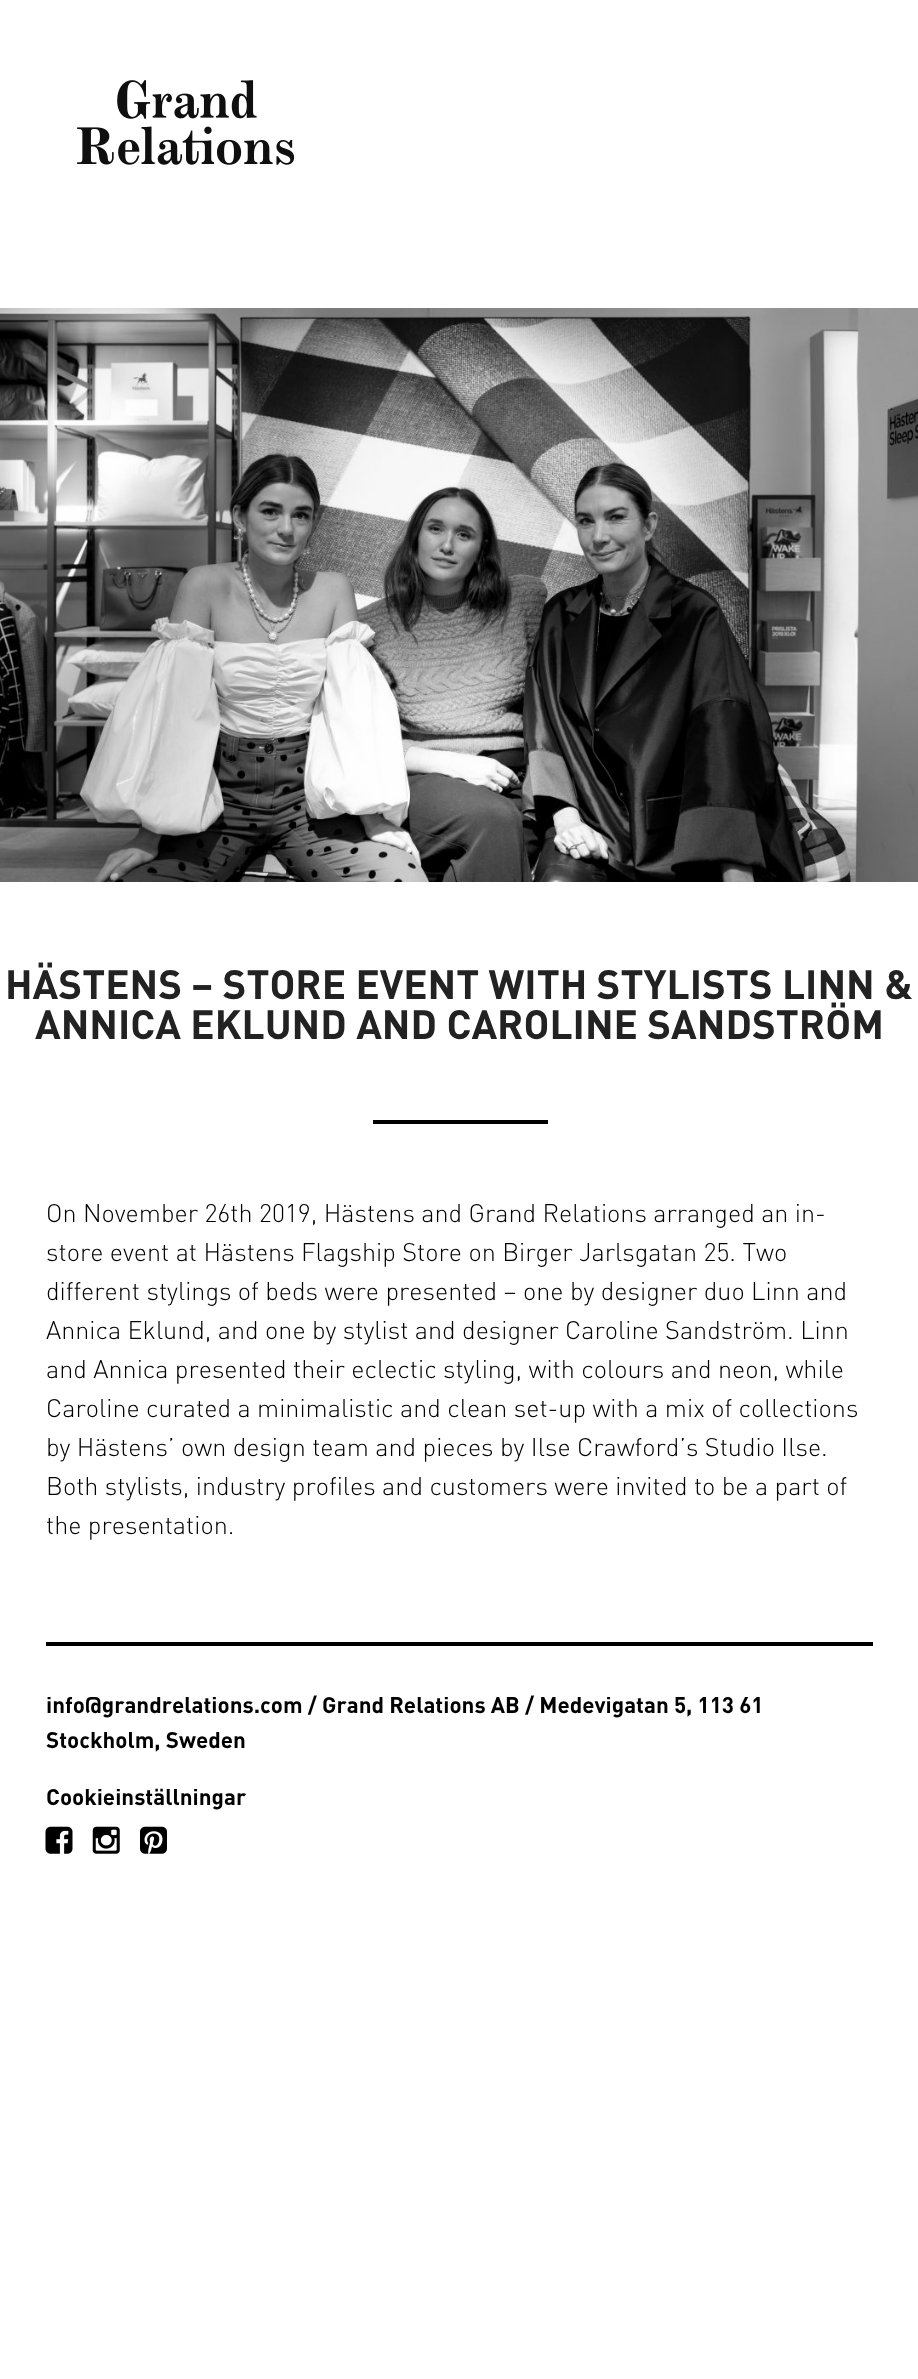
<svg xmlns="http://www.w3.org/2000/svg" width="918" height="2379" viewBox="0 0 918 2379">
  <rect width="100%" height="100%" fill="#ffffff"/>
  <image x="77" y="80" width="218" height="85" href="img1.png"/>
  <image x="0" y="308" width="918" height="574" href="img2.png"/>
  <text x="5" y="999" font-family="DIN" font-size="40.3" font-weight="bold" fill="#222222">HÄSTENS – STORE EVENT WITH STYLISTS LINN &amp;</text>
  <text x="35" y="1039" font-family="DIN" font-size="40.3" font-weight="bold" fill="#222222">ANNICA EKLUND AND CAROLINE SANDSTRÖM</text>
  <rect x="373" y="1120" width="175" height="4" fill="#000000"/>
  <text x="46" y="1222" font-family="DIN" font-size="25.2" font-weight="300" fill="#000000">On November 26th 2019, Hästens and Grand Relations arranged an in-</text>
  <text x="46" y="1261" font-family="DIN" font-size="25.2" font-weight="300" fill="#000000">store event at Hästens Flagship Store on Birger Jarlsgatan 25. Two</text>
  <text x="46" y="1300" font-family="DIN" font-size="25.2" font-weight="300" fill="#000000">different stylings of beds were presented – one by designer duo Linn and</text>
  <text x="46" y="1339" font-family="DIN" font-size="25.2" font-weight="300" fill="#000000">Annica Eklund, and one by stylist and designer Caroline Sandström. Linn</text>
  <text x="46" y="1378" font-family="DIN" font-size="25.2" font-weight="300" fill="#000000">and Annica presented their eclectic styling, with colours and neon, while</text>
  <text x="46" y="1417" font-family="DIN" font-size="25.2" font-weight="300" fill="#000000">Caroline curated a minimalistic and clean set-up with a mix of collections</text>
  <text x="46" y="1456" font-family="DIN" font-size="25.2" font-weight="300" fill="#000000">by Hästens’ own design team and pieces by Ilse Crawford’s Studio Ilse.</text>
  <text x="46" y="1495" font-family="DIN" font-size="25.2" font-weight="300" fill="#000000">Both stylists, industry profiles and customers were invited to be a part of</text>
  <text x="46" y="1534" font-family="DIN" font-size="25.2" font-weight="300" fill="#000000">the presentation.</text>
  <rect x="46" y="1642" width="827" height="4" fill="#000000"/>
  <text x="46" y="1713" font-family="DIN" font-size="22.4" font-weight="bold" fill="#000000">info@grandrelations.com / Grand Relations AB / Medevigatan 5, 113 61</text>
  <text x="46" y="1748" font-family="DIN" font-size="22.4" font-weight="bold" fill="#000000">Stockholm, Sweden</text>
  <text x="46" y="1805" font-family="DIN" font-size="22.4" font-weight="bold" fill="#000000">Cookieinställningar</text>
  <image x="45" y="1826" width="28" height="28" href="img3.png"/>
  <image x="92" y="1826" width="28" height="28" href="img4.png"/>
  <image x="140" y="1826" width="27" height="28" href="img5.png"/>
</svg>
